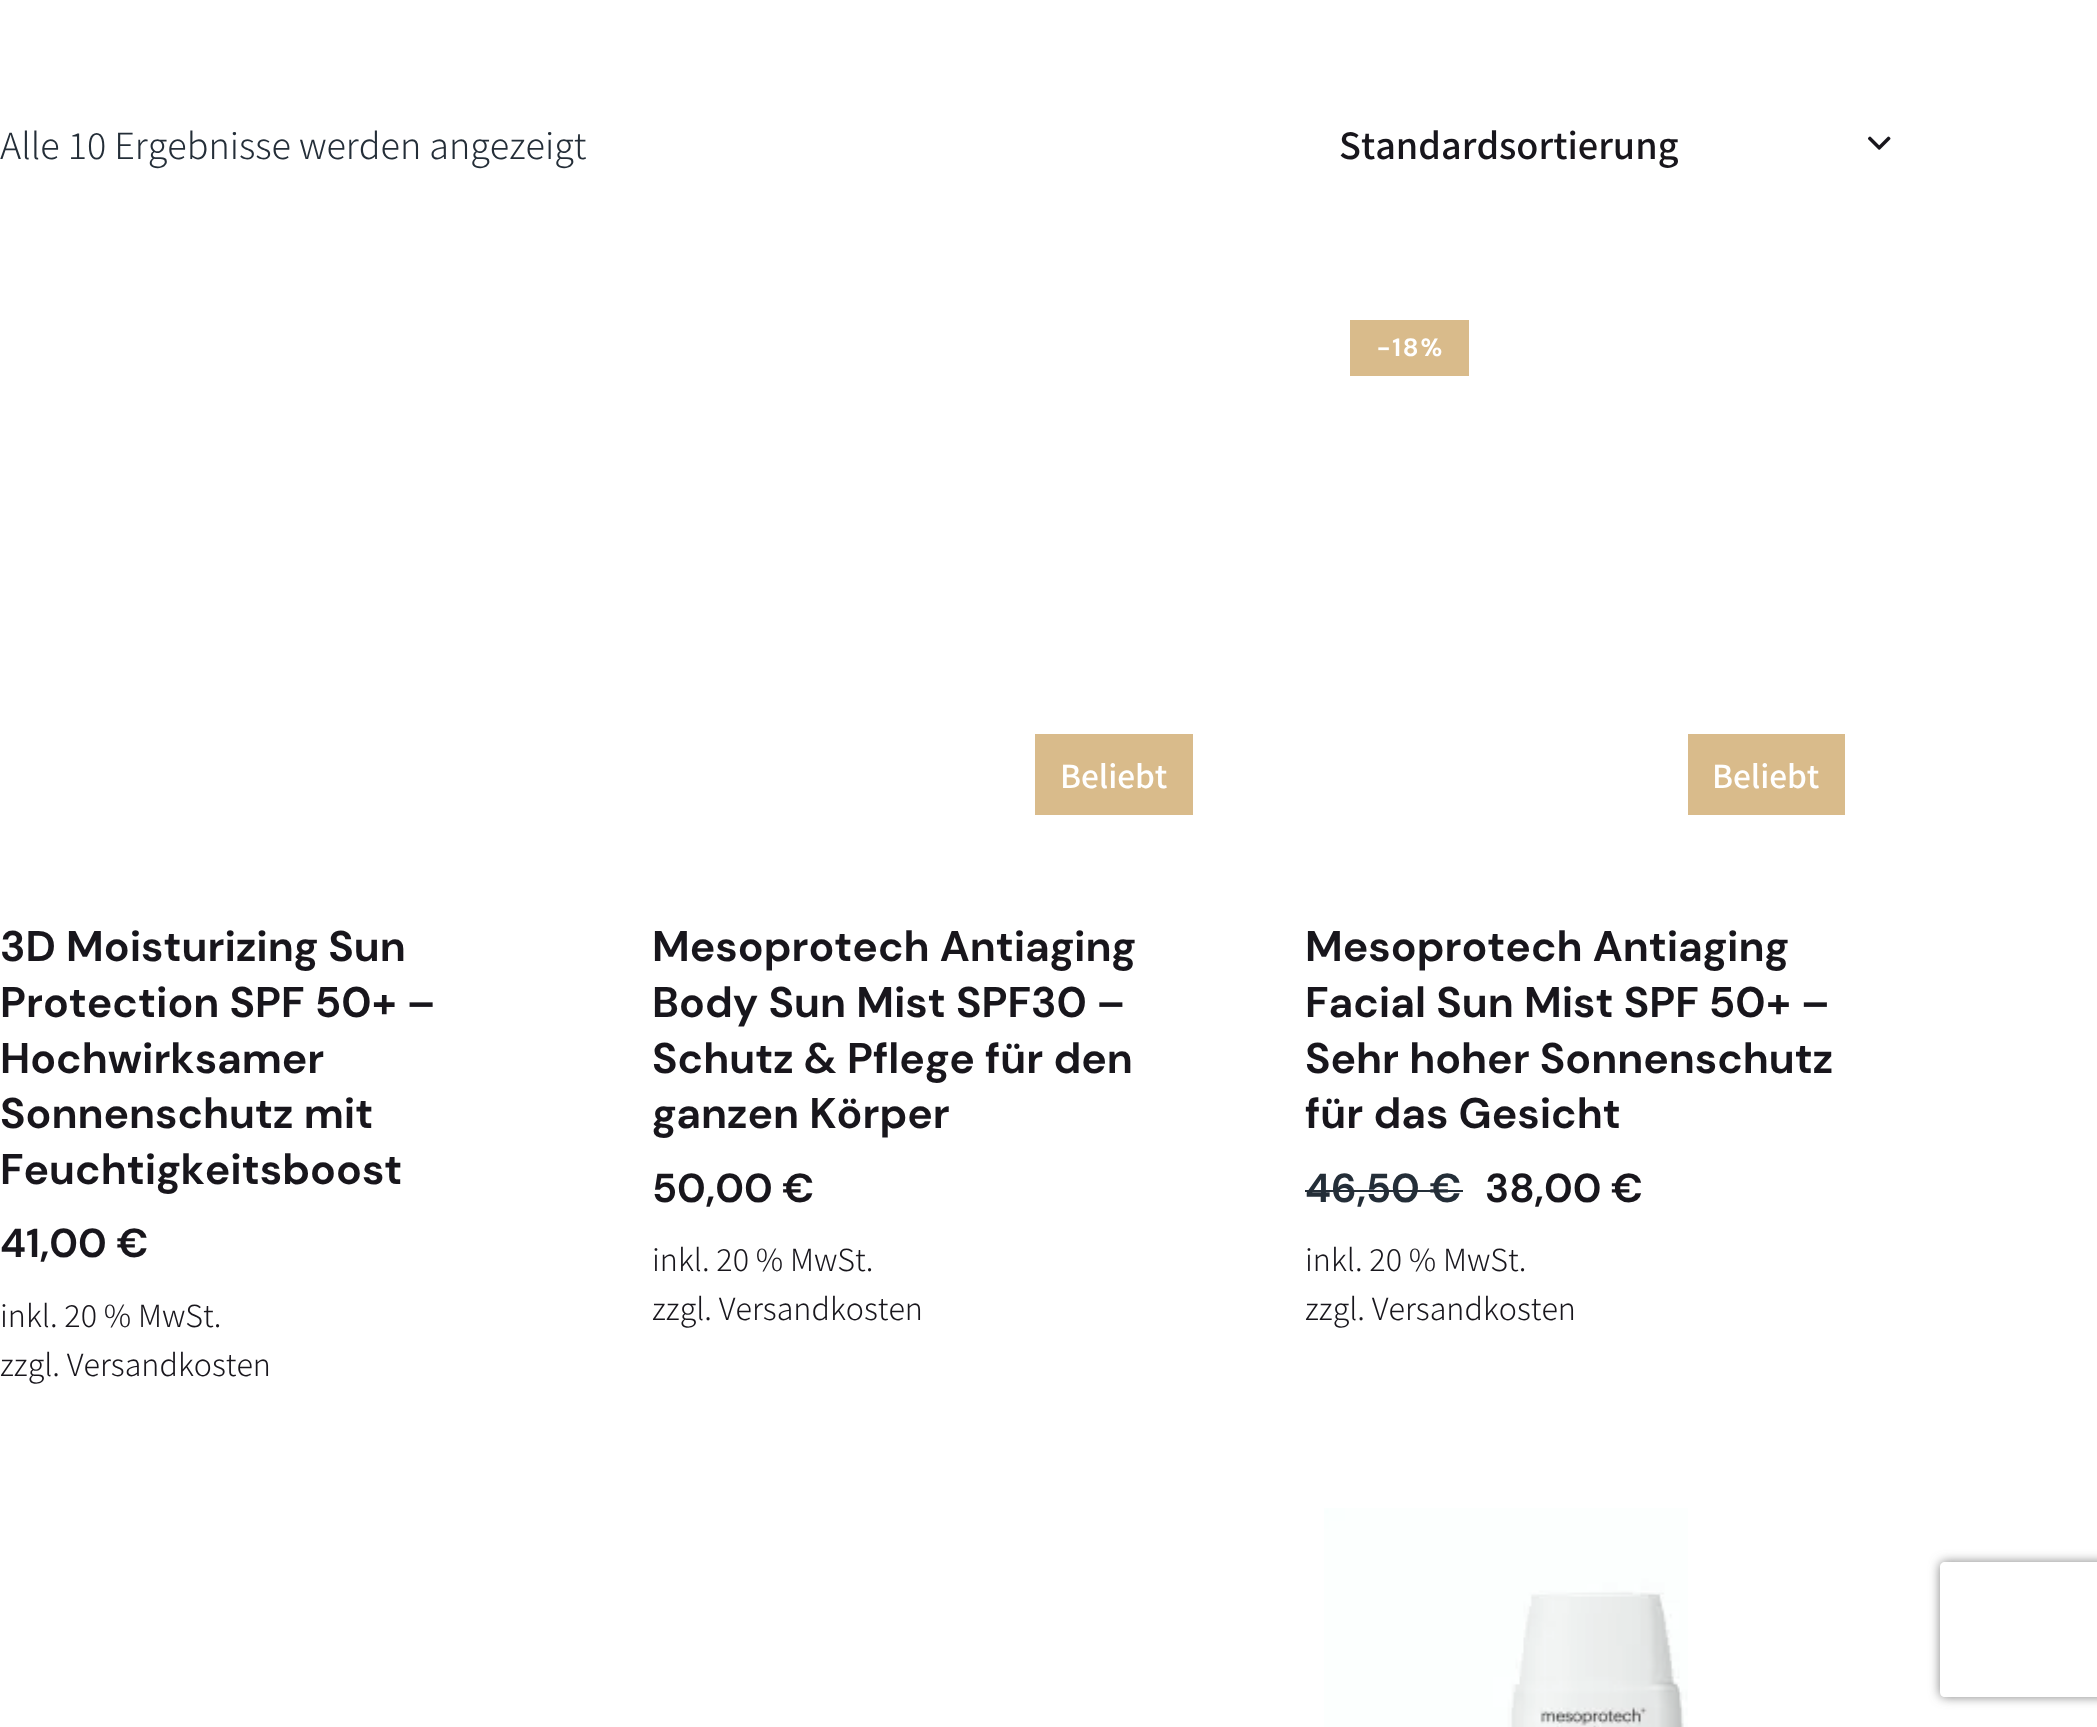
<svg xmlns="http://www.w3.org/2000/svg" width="2097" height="1727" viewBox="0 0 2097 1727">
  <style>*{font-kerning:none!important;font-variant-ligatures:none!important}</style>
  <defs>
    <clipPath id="clip1"><path d="M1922 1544H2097V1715H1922ZM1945 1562H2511C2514 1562 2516 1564 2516 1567V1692C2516 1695 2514 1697 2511 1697H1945C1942 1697 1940 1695 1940 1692V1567C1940 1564 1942 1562 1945 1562Z" clip-rule="evenodd"/></clipPath>
    <filter id="blur1" x="-50%" y="-200%" width="200%" height="500%"><feGaussianBlur stdDeviation="5.5"/></filter>
  </defs>
  <rect width="100%" height="100%" fill="#ffffff"/>
  <text x="0" y="159" font-family="Noto Sans JP" font-size="36" font-weight="300" fill="#242e38">Alle 10 Ergebnisse werden angezeigt</text>
  <text x="1339" y="159" font-family="Noto Sans JP" font-size="36" font-weight="500" fill="#18161c">Standardsortierung</text>
  <image x="1868" y="136" width="23" height="14" href="img1.png"/>
  <text x="0" y="961" font-family="DM Sans" font-size="42.75" font-weight="bold" fill="#18161c">3D Moisturizing Sun</text>
  <text x="0" y="1017" font-family="DM Sans" font-size="42.75" font-weight="bold" fill="#18161c">Protection SPF 50+ –</text>
  <text x="0" y="1073" font-family="DM Sans" font-size="42.75" font-weight="bold" fill="#18161c">Hochwirksamer</text>
  <text x="0" y="1128" font-family="DM Sans" font-size="42.75" font-weight="bold" fill="#18161c">Sonnenschutz mit</text>
  <text x="0" y="1184" font-family="DM Sans" font-size="42.75" font-weight="bold" fill="#18161c">Feuchtigkeitsboost</text>
  <text x="0" y="1257" font-family="DM Sans" font-size="40.5" font-weight="bold" fill="#18161c">41,00 €</text>
  <text x="0" y="1327" font-family="Noto Sans JP" font-size="30.5" font-weight="300" fill="#18161c">inkl. 20 % MwSt.</text>
  <text x="0" y="1376" font-family="Noto Sans JP" font-size="30.5" font-weight="300" fill="#18161c">zzgl. Versandkosten</text>
  <rect x="1035" y="734" width="158" height="81" fill="#d9bb8b"/>
  <text x="1060" y="788" font-family="Noto Sans JP" font-size="31.5" font-weight="500" fill="#ffffff">Beliebt</text>
  <text x="652" y="961" font-family="DM Sans" font-size="42.75" font-weight="bold" fill="#18161c">Mesoprotech Antiaging</text>
  <text x="652" y="1017" font-family="DM Sans" font-size="42.75" font-weight="bold" fill="#18161c">Body Sun Mist SPF30 –</text>
  <text x="652" y="1073" font-family="DM Sans" font-size="42.75" font-weight="bold" fill="#18161c">Schutz &amp; Pflege für den</text>
  <text x="652" y="1128" font-family="DM Sans" font-size="42.75" font-weight="bold" fill="#18161c">ganzen Körper</text>
  <text x="652" y="1202" font-family="DM Sans" font-size="40.5" font-weight="bold" fill="#18161c">50,00 €</text>
  <text x="652" y="1271" font-family="Noto Sans JP" font-size="30.5" font-weight="300" fill="#18161c">inkl. 20 % MwSt.</text>
  <text x="652" y="1320" font-family="Noto Sans JP" font-size="30.5" font-weight="300" fill="#18161c">zzgl. Versandkosten</text>
  <rect x="1350" y="320" width="119" height="56" fill="#d9bb8b"/>
  <text x="1377" y="356" font-family="DM Sans" font-size="25" font-weight="bold" letter-spacing="2" fill="#ffffff">-18%</text>
  <rect x="1688" y="734" width="157" height="81" fill="#d9bb8b"/>
  <text x="1712" y="788" font-family="Noto Sans JP" font-size="31.5" font-weight="500" fill="#ffffff">Beliebt</text>
  <text x="1305" y="961" font-family="DM Sans" font-size="42.75" font-weight="bold" fill="#18161c">Mesoprotech Antiaging</text>
  <text x="1305" y="1017" font-family="DM Sans" font-size="42.75" font-weight="bold" fill="#18161c">Facial Sun Mist SPF 50+ –</text>
  <text x="1305" y="1073" font-family="DM Sans" font-size="42.75" font-weight="bold" fill="#18161c">Sehr hoher Sonnenschutz</text>
  <text x="1305" y="1128" font-family="DM Sans" font-size="42.75" font-weight="bold" fill="#18161c">für das Gesicht</text>
  <text x="1305" y="1202" font-family="DM Sans" font-size="40.5" font-weight="bold" fill="#242e38">46,50 €</text>
  <rect x="1305" y="1190" width="158" height="2" fill="#242e38"/>
  <text x="1485" y="1202" font-family="DM Sans" font-size="40.5" font-weight="bold" fill="#18161c">38,00 €</text>
  <text x="1305" y="1271" font-family="Noto Sans JP" font-size="30.5" font-weight="300" fill="#18161c">inkl. 20 % MwSt.</text>
  <text x="1305" y="1320" font-family="Noto Sans JP" font-size="30.5" font-weight="300" fill="#18161c">zzgl. Versandkosten</text>
  <image x="1324" y="1508" width="364" height="219" href="img2.png"/>
  <g clip-path="url(#clip1)">
    <rect x="1940" y="1562" width="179" height="135" rx="5" fill="#808080" filter="url(#blur1)"/>
  </g>
</svg>
